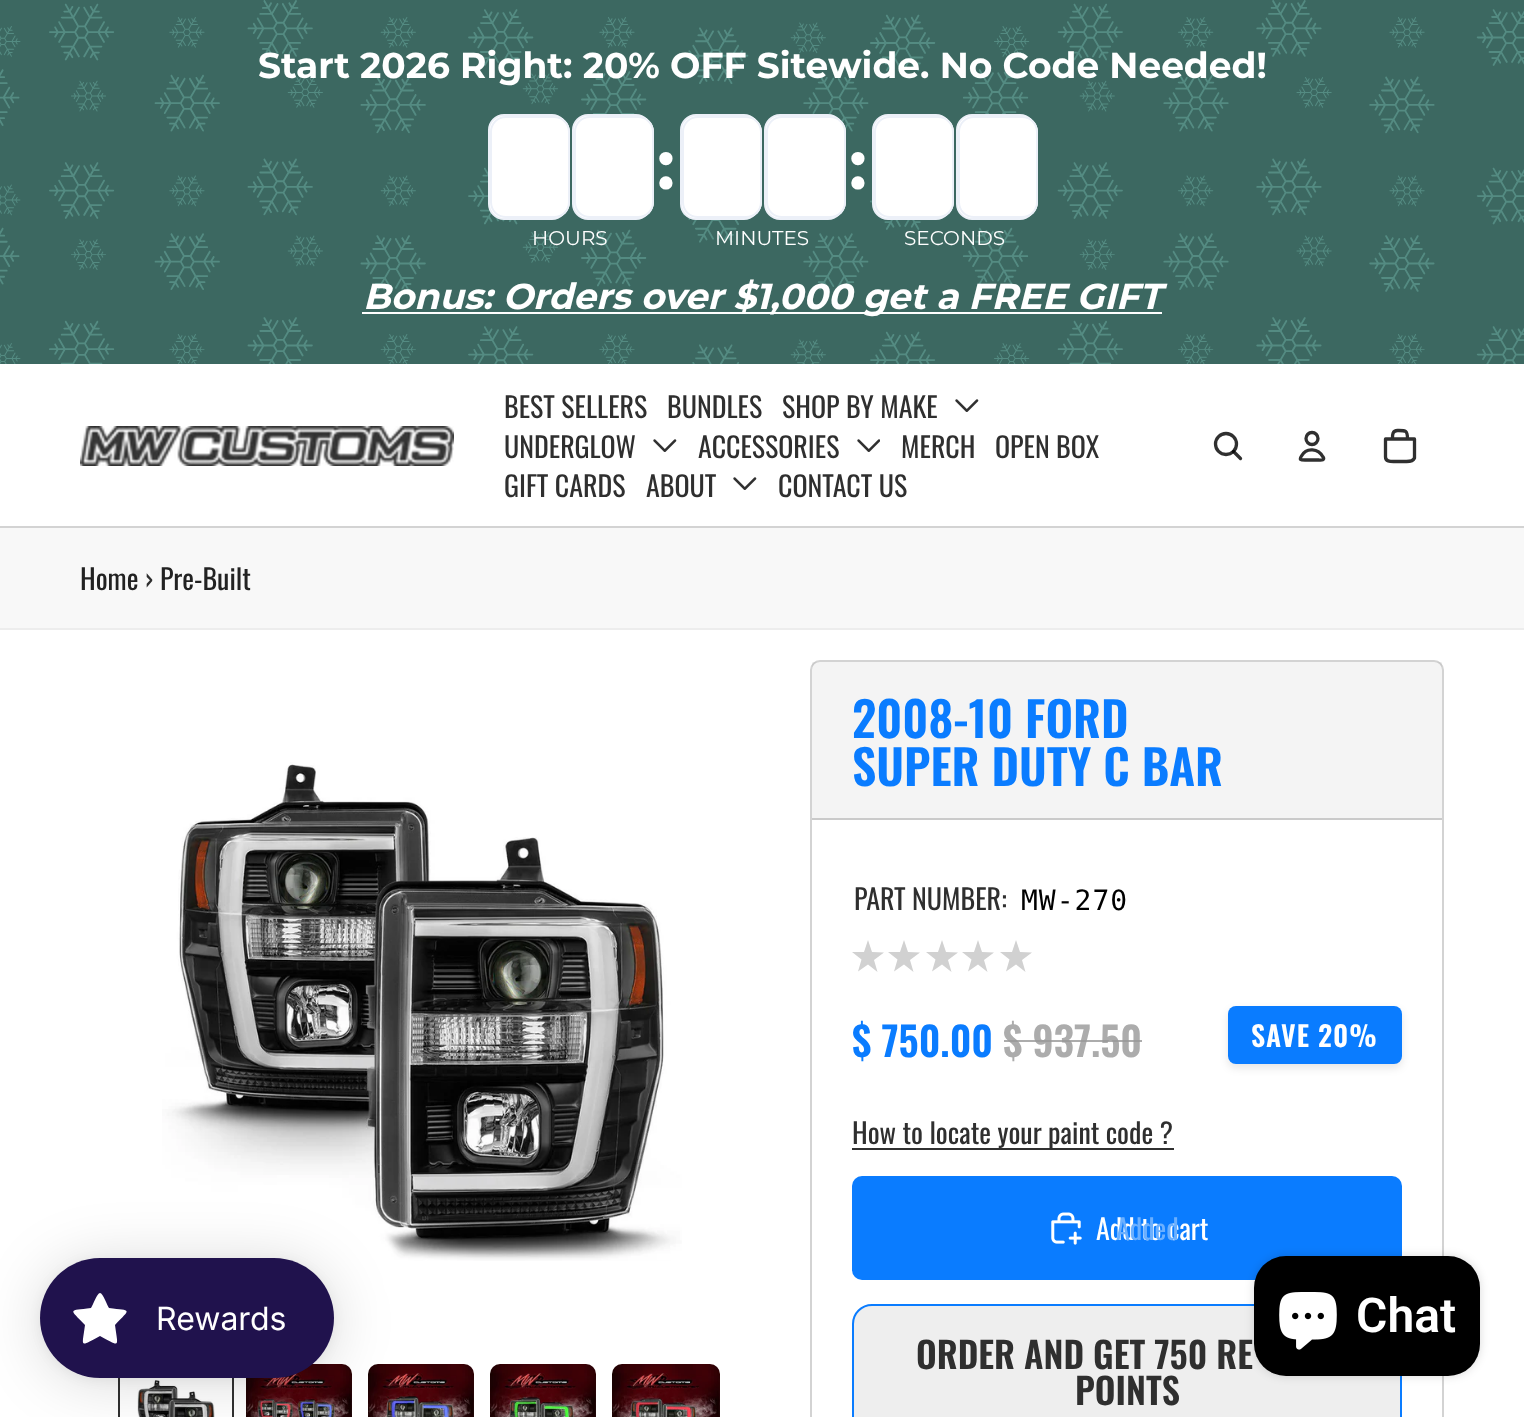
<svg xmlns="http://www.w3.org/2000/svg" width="1524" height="1417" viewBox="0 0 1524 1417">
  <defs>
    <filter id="blur1" x="-50%" y="-200%" width="200%" height="500%"><feGaussianBlur stdDeviation="4"/></filter>
    <filter id="blur2" x="-50%" y="-200%" width="200%" height="500%"><feGaussianBlur stdDeviation="5"/></filter>
    <filter id="blur3" x="-50%" y="-200%" width="200%" height="500%"><feGaussianBlur stdDeviation="30"/></filter>
    <filter id="blur4" x="-50%" y="-200%" width="200%" height="500%"><feGaussianBlur stdDeviation="6"/></filter>
  </defs>
  <rect width="100%" height="100%" fill="#ffffff"/>
  <rect x="0" y="0" width="1524" height="364" fill="#3c6861"/>
  <image x="0" y="0" width="1524" height="364" href="img1.png"/>
  <text x="258" y="78" font-family="Montserrat" font-size="36" font-weight="100" fill="#ffffff">Start 2026 Right: 20% OFF Sitewide. No Code Needed!</text>
  <text x="657" y="189" font-family="Montserrat" font-size="68" font-weight="100" fill="#ffffff">:</text>
  <text x="849" y="189" font-family="Montserrat" font-size="68" font-weight="100" fill="#ffffff">:</text>
  <rect x="489" y="115" width="78" height="104" rx="15" fill="#ffffff" stroke="#ecf0f8" stroke-width="2"/>
  <path d="M490 166H570V202C570 211 563 218 554 218H506C497 218 490 211 490 202Z" fill="#ffffff"/>
  <path d="M490 166H570V202C570 211 563 218 554 218H506C497 218 490 211 490 202ZM492 166H568V202C568 210 562 216 554 216H506C498 216 492 210 492 202Z" fill="#ecf0f8" fill-rule="evenodd"/>
  <path d="M506 116H554C563 116 570 123 570 132V168H490V132C490 123 497 116 506 116Z" fill="#ffffff"/>
  <path d="M506 116H554C563 116 570 123 570 132V168H490V132C490 123 497 116 506 116ZM506 118H554C562 118 568 124 568 132V168H492V132C492 124 498 118 506 118Z" fill="#ecf0f8" fill-rule="evenodd"/>
  <rect x="573" y="115" width="78" height="104" rx="15" fill="#ffffff" stroke="#ecf0f8" stroke-width="2"/>
  <path d="M574 166H654V202C654 211 647 218 638 218H590C581 218 574 211 574 202Z" fill="#ffffff"/>
  <path d="M574 166H654V202C654 211 647 218 638 218H590C581 218 574 211 574 202ZM576 166H652V202C652 210 646 216 638 216H590C582 216 576 210 576 202Z" fill="#ecf0f8" fill-rule="evenodd"/>
  <path d="M590 116H638C647 116 654 123 654 132V168H574V132C574 123 581 116 590 116Z" fill="#ffffff"/>
  <path d="M590 116H638C647 116 654 123 654 132V168H574V132C574 123 581 116 590 116ZM590 118H638C646 118 652 124 652 132V168H576V132C576 124 582 118 590 118Z" fill="#ecf0f8" fill-rule="evenodd"/>
  <text x="532" y="245" font-family="Montserrat" font-size="20" fill="#ffffff">HOURS</text>
  <rect x="681" y="115" width="78" height="104" rx="15" fill="#ffffff" stroke="#ecf0f8" stroke-width="2"/>
  <path d="M682 166H762V202C762 211 755 218 746 218H698C689 218 682 211 682 202Z" fill="#ffffff"/>
  <path d="M682 166H762V202C762 211 755 218 746 218H698C689 218 682 211 682 202ZM684 166H760V202C760 210 754 216 746 216H698C690 216 684 210 684 202Z" fill="#ecf0f8" fill-rule="evenodd"/>
  <path d="M698 116H746C755 116 762 123 762 132V168H682V132C682 123 689 116 698 116Z" fill="#ffffff"/>
  <path d="M698 116H746C755 116 762 123 762 132V168H682V132C682 123 689 116 698 116ZM698 118H746C754 118 760 124 760 132V168H684V132C684 124 690 118 698 118Z" fill="#ecf0f8" fill-rule="evenodd"/>
  <rect x="765" y="115" width="78" height="104" rx="15" fill="#ffffff" stroke="#ecf0f8" stroke-width="2"/>
  <path d="M766 166H846V202C846 211 839 218 830 218H782C773 218 766 211 766 202Z" fill="#ffffff"/>
  <path d="M766 166H846V202C846 211 839 218 830 218H782C773 218 766 211 766 202ZM768 166H844V202C844 210 838 216 830 216H782C774 216 768 210 768 202Z" fill="#ecf0f8" fill-rule="evenodd"/>
  <path d="M782 116H830C839 116 846 123 846 132V168H766V132C766 123 773 116 782 116Z" fill="#ffffff"/>
  <path d="M782 116H830C839 116 846 123 846 132V168H766V132C766 123 773 116 782 116ZM782 118H830C838 118 844 124 844 132V168H768V132C768 124 774 118 782 118Z" fill="#ecf0f8" fill-rule="evenodd"/>
  <text x="715" y="245" font-family="Montserrat" font-size="20" fill="#ffffff">MINUTES</text>
  <rect x="873" y="115" width="78" height="104" rx="15" fill="#ffffff" stroke="#ecf0f8" stroke-width="2"/>
  <path d="M874 166H954V202C954 211 947 218 938 218H890C881 218 874 211 874 202Z" fill="#ffffff"/>
  <path d="M874 166H954V202C954 211 947 218 938 218H890C881 218 874 211 874 202ZM876 166H952V202C952 210 946 216 938 216H890C882 216 876 210 876 202Z" fill="#ecf0f8" fill-rule="evenodd"/>
  <path d="M890 116H938C947 116 954 123 954 132V168H874V132C874 123 881 116 890 116Z" fill="#ffffff"/>
  <path d="M890 116H938C947 116 954 123 954 132V168H874V132C874 123 881 116 890 116ZM890 118H938C946 118 952 124 952 132V168H876V132C876 124 882 118 890 118Z" fill="#ecf0f8" fill-rule="evenodd"/>
  <rect x="957" y="115" width="78" height="104" rx="15" fill="#ffffff" stroke="#ecf0f8" stroke-width="2"/>
  <path d="M958 166H1038V202C1038 211 1031 218 1022 218H974C965 218 958 211 958 202Z" fill="#ffffff"/>
  <path d="M958 166H1038V202C1038 211 1031 218 1022 218H974C965 218 958 211 958 202ZM960 166H1036V202C1036 210 1030 216 1022 216H974C966 216 960 210 960 202Z" fill="#ecf0f8" fill-rule="evenodd"/>
  <path d="M974 116H1022C1031 116 1038 123 1038 132V168H958V132C958 123 965 116 974 116Z" fill="#ffffff"/>
  <path d="M974 116H1022C1031 116 1038 123 1038 132V168H958V132C958 123 965 116 974 116ZM974 118H1022C1030 118 1036 124 1036 132V168H960V132C960 124 966 118 974 118Z" fill="#ecf0f8" fill-rule="evenodd"/>
  <text x="904" y="245" font-family="Montserrat" font-size="20" fill="#ffffff">SECONDS</text>
  <rect x="362" y="312" width="800" height="2" fill="#ffffff"/>
  <text x="363" y="309" font-family="Montserrat" font-size="36" font-weight="100" font-style="italic" fill="#ffffff">Bonus: Orders over $1,000 get a FREE GIFT</text>
  <rect x="0" y="526" width="1524" height="2" fill="#d3d3d3"/>
  <image x="80" y="426" width="374" height="40" href="img2.png"/>
  <text x="504" y="418" font-family="Oswald" font-size="28" fill="#2f2f2f">BEST SELLERS</text>
  <text x="667" y="418" font-family="Oswald" font-size="28" fill="#2f2f2f">BUNDLES</text>
  <text x="782" y="418" font-family="Oswald" font-size="28" fill="#2f2f2f">SHOP BY MAKE</text>
  <image x="955" y="399" width="24" height="13" href="img3.png"/>
  <text x="504" y="458" font-family="Oswald" font-size="28" fill="#2f2f2f">UNDERGLOW</text>
  <image x="653" y="439" width="24" height="13" href="img3.png"/>
  <text x="698" y="458" font-family="Oswald" font-size="28" fill="#2f2f2f">ACCESSORIES</text>
  <image x="857" y="439" width="23" height="13" href="img4.png"/>
  <text x="901" y="458" font-family="Oswald" font-size="28" fill="#2f2f2f">MERCH</text>
  <text x="995" y="458" font-family="Oswald" font-size="28" fill="#2f2f2f">OPEN BOX</text>
  <text x="504" y="497" font-family="Oswald" font-size="28" fill="#2f2f2f">GIFT CARDS</text>
  <text x="646" y="497" font-family="Oswald" font-size="28" fill="#2f2f2f">ABOUT</text>
  <image x="733" y="477" width="24" height="13" href="img3.png"/>
  <text x="778" y="497" font-family="Oswald" font-size="28" fill="#2f2f2f">CONTACT US</text>
  <circle cx="1226" cy="444" r="10.5" fill="none" stroke="#303030" stroke-width="3.3"/>
  <path d="M1233.5 451.5L1240.5 458.5" fill="none" stroke="#000000" stroke-opacity="0.81" stroke-width="3.3" stroke-linecap="round" stroke-linejoin="round"/>
  <circle cx="1312" cy="438.5" r="6" fill="none" stroke="#303030" stroke-width="3.3"/>
  <path d="M1301.5 456C1299 460 1300.5 460 1305 460H1319C1319.5 460 1323 460.5 1323.5 459C1324 458.5 1323.5 457.5 1323 457C1318.5 448.5 1306.5 447 1301.5 456" fill="none" stroke="#303030" stroke-width="3.3" stroke-linecap="round" stroke-linejoin="round"/>
  <path d="M1385.5 439H1414.5V458C1413 461.5 1409.5 461.5 1406.5 461.5H1393.5C1390 461.5 1385.5 461.5 1385.5 457ZM1397.5 430.5C1405.5 430.5 1407.5 430 1407.5 439H1392.5C1392.5 435.5 1392 430.5 1397.5 430.5" fill="none" stroke="#303030" stroke-width="3.3" stroke-linecap="round" stroke-linejoin="round"/>
  <rect x="0" y="528" width="1524" height="100" fill="#f8f8f8"/>
  <rect x="0" y="628" width="1524" height="2" fill="#ededed"/>
  <text x="80" y="590" font-family="Oswald" font-size="28" fill="#222222">Home</text>
  <text x="145" y="590" font-family="Oswald" font-size="28" fill="#2f2f2f">›</text>
  <text x="160" y="590" font-family="Oswald" font-size="28" fill="#222222">Pre-Built</text>
  <image x="162" y="762" width="520" height="499" href="img5.png"/>
  <image x="137" y="1380" width="78" height="37" href="img6.png"/>
  <rect x="119" y="1361" width="114" height="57" fill="none" stroke="#303030" stroke-width="2"/>
  <image x="246" y="1364" width="106" height="53" href="img7.png"/>
  <image x="368" y="1364" width="106" height="53" href="img8.png"/>
  <image x="490" y="1364" width="106" height="53" href="img9.png"/>
  <image x="612" y="1364" width="108" height="53" href="img10.png"/>
  <rect x="811" y="661" width="632" height="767" rx="9" fill="none" stroke="#d3d3d3" stroke-width="2"/>
  <rect x="812" y="662" width="630" height="156" fill="#212121" fill-opacity="0.05"/>
  <rect x="812" y="818" width="630" height="2" fill="#cacaca"/>
  <text x="852" y="738" font-family="Oswald" font-size="48" font-weight="600" fill="#0a7cff">2008-10 FORD</text>
  <text x="852" y="786" font-family="Oswald" font-size="48" font-weight="600" fill="#0a7cff">SUPER DUTY C BAR</text>
  <text x="854" y="910" font-family="Oswald" font-size="28" fill="#2f2f2f">PART NUMBER:</text>
  <text x="1021" y="910" font-family="DejaVu Sans Mono" font-size="28" letter-spacing="1" fill="#000000">MW-270</text>
  <path d="M877.5 972L868 964.5L858 971.5L861.5 959.5L852 952H864L868 940L872 952L884 952.5L874 960Z" fill="#d1d1d1"/>
  <path d="M913.5 972L904 964.5L894 971.5L897.5 959.5L888 952H900L904 940L908 952L920 952.5L910 960Z" fill="#d1d1d1"/>
  <path d="M951.5 972L942 964.5L932 971.5L935.5 959.5L926 952H938L942 940L946 952L958 952.5L948 960Z" fill="#d1d1d1"/>
  <path d="M987.5 972L978 964.5L968 971.5L971.5 959.5L962 952H974L978 940L982 952L994 952.5L984 960Z" fill="#d1d1d1"/>
  <path d="M1025.5 972L1016 964.5L1006 971.5L1009.5 959.5L1000 952H1012L1016 940L1020 952L1032 952.5L1022 960Z" fill="#d1d1d1"/>
  <text x="852" y="1057" font-family="Oswald" font-size="40" font-weight="600" fill="#0a7cff">$ 750.00</text>
  <text x="1003" y="1057" font-family="Oswald" font-size="40" font-weight="600" fill="#acacac">$ 937.50</text>
  <rect x="1004" y="1040" width="138" height="2" fill="#999999" fill-opacity="0.81"/>
  <rect x="1228" y="1010" width="174" height="58" rx="8" fill="#000000" fill-opacity="0.1" filter="url(#blur1)"/>
  <rect x="1228" y="1006" width="174" height="58" rx="8" fill="#0a7cff"/>
  <text x="1251" y="1047" font-family="Oswald" font-size="28" font-weight="600" letter-spacing="1" fill="#ffffff">SAVE 20%</text>
  <rect x="852" y="1148" width="322" height="2" fill="#303030"/>
  <text x="852" y="1144" font-family="Oswald" font-size="28" fill="#2f2f2f">How to locate your paint code ?</text>
  <rect x="852" y="1176" width="550" height="104" rx="10" fill="#0a7cff"/>
  <image x="1051" y="1212" width="31" height="33" href="img11.png"/>
  <text x="1096" y="1240" font-family="Oswald" font-size="28" fill="#ffffff">Add to cart</text>
  <text x="1116" y="1240" font-family="Oswald" font-size="28" fill="#6bb0ff">Added</text>
  <rect x="853" y="1305" width="548" height="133" rx="19" fill="#eeeeee" stroke="#0a7cff" stroke-width="2"/>
  <text x="916" y="1369" font-family="Oswald" font-size="36" font-weight="600" fill="#2f2f2f">ORDER AND GET 750 RE</text>
  <text x="1075" y="1405" font-family="Oswald" font-size="36" font-weight="600" fill="#2f2f2f">POINTS</text>
  <rect x="1254" y="1256" width="226" height="120" rx="32" fill="#000000" fill-opacity="0.15" filter="url(#blur2)"/>
  <rect x="1254" y="1256" width="226" height="120" rx="32" fill="#000000"/>
  <image x="1279" y="1292" width="58" height="58" href="img12.png"/>
  <text x="1356" y="1332" font-family="Roboto" font-size="48" font-weight="600" fill="#ffffff">Chat</text>
  <rect x="40" y="1262" width="294" height="120" rx="60" fill="#000000" fill-opacity="0.15" filter="url(#blur3)"/>
  <rect x="40" y="1260" width="294" height="120" rx="60" fill="#000000" fill-opacity="0.05" filter="url(#blur4)"/>
  <rect x="40" y="1258" width="294" height="120" rx="60" fill="#20124d"/>
  <path d="M100 1293C97 1293 93 1305 91 1308C68 1311 69 1308 85 1325C82 1348 79 1347 100 1336C121 1347 118 1348 115 1325C131 1308 132 1311 109 1308C107 1305 103 1293 100 1293Z" fill="#ffffff"/>
  <text x="156" y="1330" font-family="Inter" font-size="32" fill="#ffffff">Rewards</text>
</svg>
